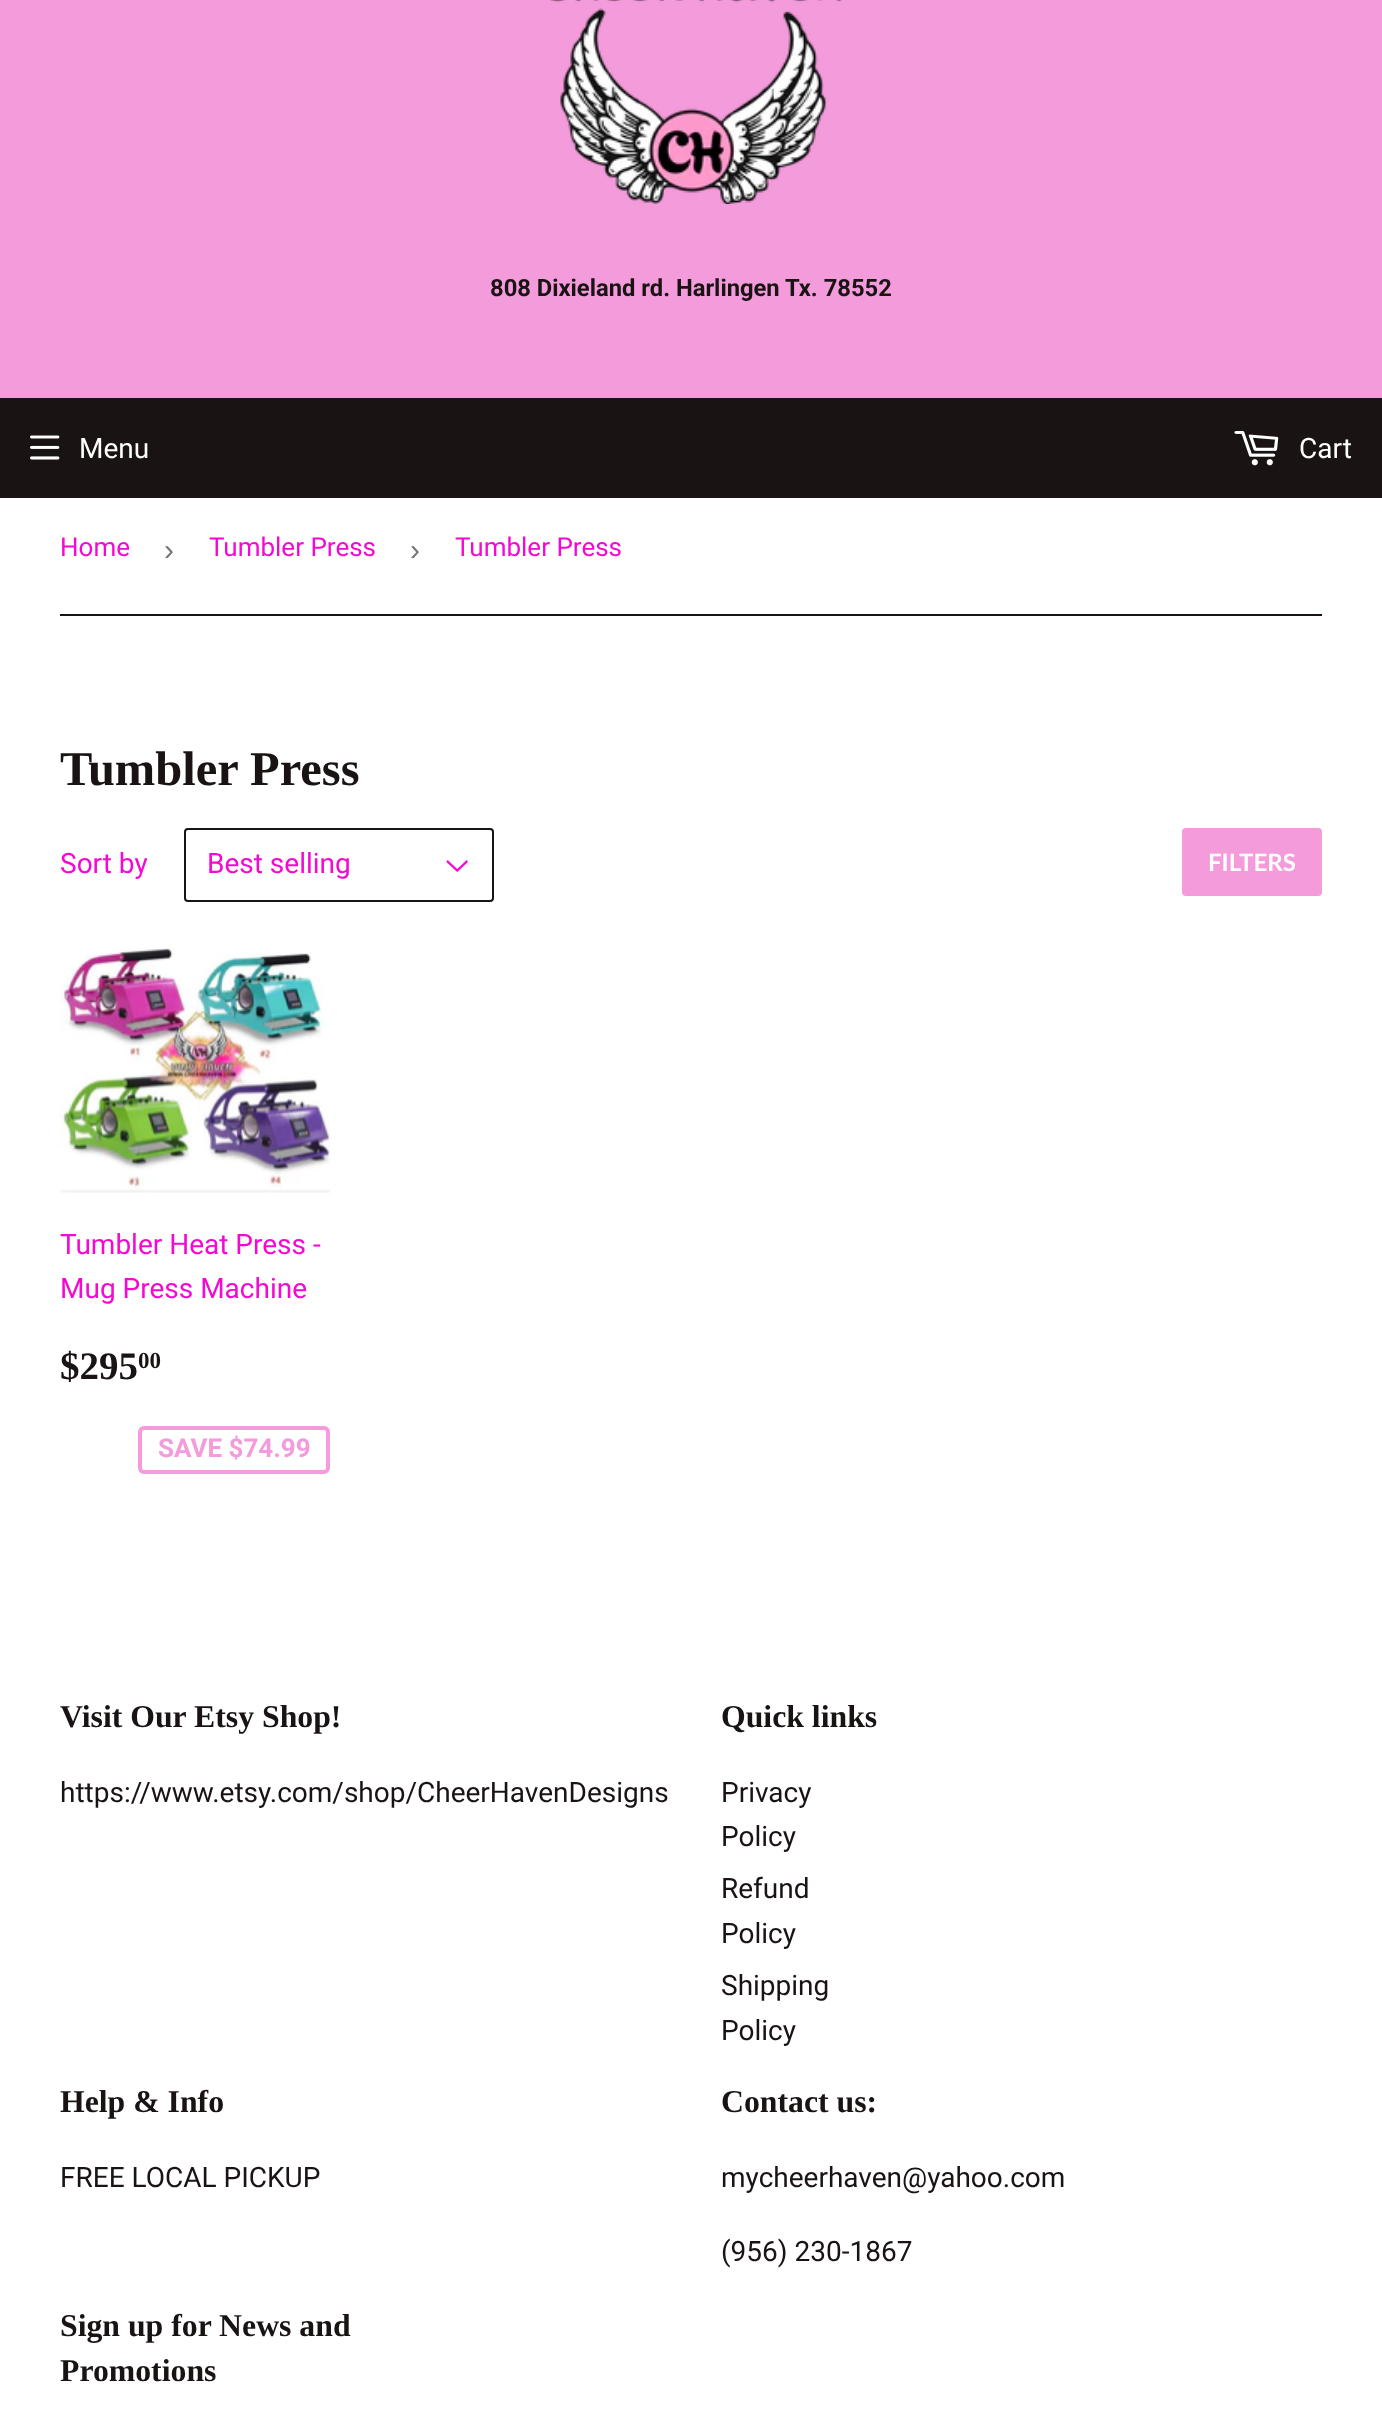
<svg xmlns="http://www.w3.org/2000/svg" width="1382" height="2413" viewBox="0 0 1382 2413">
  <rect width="100%" height="100%" fill="#ffffff"/>
  <rect x="0" y="0" width="1382" height="398" fill="#f49bdb"/>
  <image x="550" y="0" width="292" height="204" href="img1.png"/>
  <text x="490" y="296" font-family="Roboto" font-size="23.75" font-weight="bold" fill="#191313">808 Dixieland rd. Harlingen Tx. 78552</text>
  <rect x="0" y="398" width="1382" height="100" fill="#191313"/>
  <image x="30" y="435" width="30" height="25" href="img2.png"/>
  <text x="79" y="458" font-family="Roboto" font-size="28" fill="#ffffff">Menu</text>
  <image x="1234" y="431" width="45" height="35" href="img3.png"/>
  <text x="1299" y="458" font-family="Roboto" font-size="28" fill="#ffffff">Cart</text>
  <rect x="60" y="614" width="1262" height="2" fill="#191313"/>
  <text x="60" y="556" font-family="Roboto" font-size="26" fill="#f509d2">Home</text>
  <text x="164" y="560" font-family="Liberation Sans" font-size="30" fill="#767676">›</text>
  <text x="209" y="556" font-family="Roboto" font-size="26" fill="#f509d2">Tumbler Press</text>
  <text x="410" y="560" font-family="Liberation Sans" font-size="30" fill="#767676">›</text>
  <text x="455" y="556" font-family="Roboto" font-size="26" fill="#f509d2">Tumbler Press</text>
  <text x="60" y="785" font-family="Liberation Serif" font-size="48.5" font-weight="bold" fill="#191313">Tumbler Press</text>
  <text x="60" y="873" font-family="Roboto" font-size="28" fill="#f509d2">Sort by</text>
  <image x="446" y="860" width="22" height="12" href="img4.png"/>
  <rect x="185" y="829" width="308" height="72" rx="3" fill="none" stroke="#191313" stroke-width="2"/>
  <text x="207" y="873" font-family="Roboto" font-size="28" fill="#f509d2">Best selling</text>
  <rect x="1182" y="828" width="140" height="68" rx="4" fill="#f49bdb"/>
  <text x="1208" y="871" font-family="Lato" font-size="24" font-weight="bold" fill="#ffffff">FILTERS</text>
  <image x="60" y="948" width="271" height="245" href="img5.png"/>
  <text x="60" y="1254" font-family="Roboto" font-size="28" fill="#f509d2">Tumbler Heat Press -</text>
  <text x="60" y="1298" font-family="Roboto" font-size="28" fill="#f509d2">Mug Press Machine</text>
  <text x="60" y="1379" font-family="Liberation Serif" font-size="39" font-weight="bold" fill="#191313">$295</text>
  <text x="138" y="1368" font-family="Liberation Serif" font-size="23" font-weight="bold" fill="#191313">00</text>
  <rect x="140" y="1428" width="188" height="44" rx="4" fill="none" stroke="#f49bdb" stroke-width="4"/>
  <text x="158" y="1457" font-family="Roboto" font-size="26" font-weight="bold" fill="#f49bdb">SAVE $74.99</text>
  <text x="60" y="1727" font-family="Liberation Serif" font-size="31.75" font-weight="bold" fill="#191313">Visit Our Etsy Shop!</text>
  <text x="60" y="1802" font-family="Roboto" font-size="28" fill="#191313">https://www.etsy.com/shop/CheerHavenDesigns</text>
  <text x="721" y="1727" font-family="Liberation Serif" font-size="31.75" font-weight="bold" fill="#191313">Quick links</text>
  <text x="721" y="1802" font-family="Roboto" font-size="28" fill="#191313">Privacy</text>
  <text x="721" y="1846" font-family="Roboto" font-size="28" fill="#191313">Policy</text>
  <text x="721" y="1898" font-family="Roboto" font-size="28" fill="#191313">Refund</text>
  <text x="721" y="1943" font-family="Roboto" font-size="28" fill="#191313">Policy</text>
  <text x="721" y="1995" font-family="Roboto" font-size="28" fill="#191313">Shipping</text>
  <text x="721" y="2040" font-family="Roboto" font-size="28" fill="#191313">Policy</text>
  <text x="60" y="2112" font-family="Liberation Serif" font-size="31.75" font-weight="bold" fill="#191313">Help &amp; Info</text>
  <text x="60" y="2187" font-family="Roboto" font-size="28" fill="#191313">FREE LOCAL PICKUP</text>
  <text x="721" y="2112" font-family="Liberation Serif" font-size="31.75" font-weight="bold" fill="#191313">Contact us:</text>
  <text x="721" y="2187" font-family="Roboto" font-size="28" fill="#191313">mycheerhaven@yahoo.com</text>
  <text x="721" y="2261" font-family="Roboto" font-size="28" fill="#191313">(956) 230-1867</text>
  <text x="60" y="2336" font-family="Liberation Serif" font-size="31.75" font-weight="bold" fill="#191313">Sign up for News and</text>
  <text x="60" y="2381" font-family="Liberation Serif" font-size="31.75" font-weight="bold" fill="#191313">Promotions</text>
</svg>
